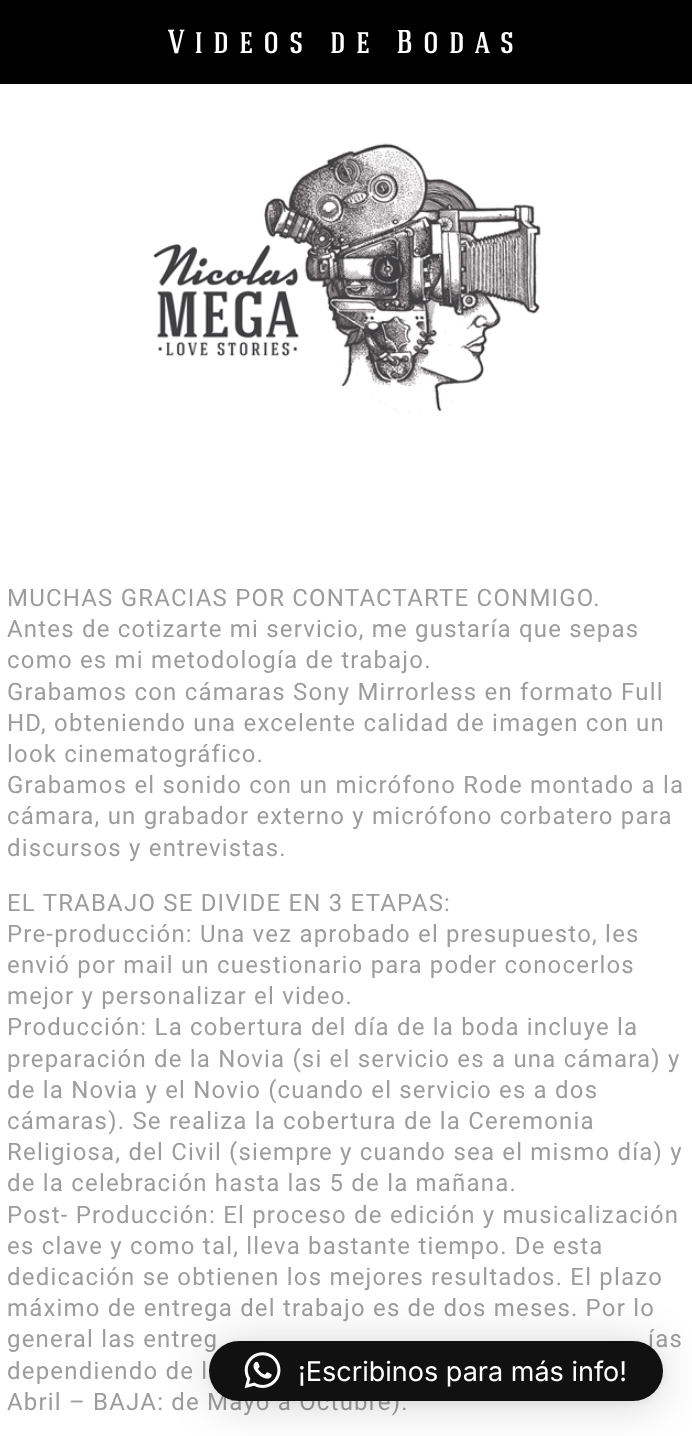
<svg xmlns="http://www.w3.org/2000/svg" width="692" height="1436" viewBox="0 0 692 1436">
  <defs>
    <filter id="blur1" x="-50%" y="-200%" width="200%" height="500%"><feGaussianBlur stdDeviation="24"/></filter>
    <filter id="blur2" x="-50%" y="-200%" width="200%" height="500%"><feGaussianBlur stdDeviation="4.5"/></filter>
  </defs>
  <rect width="100%" height="100%" fill="#ffffff"/>
  <rect x="0" y="0" width="692" height="84" fill="#000000"/>
  <text x="168" y="53" font-family="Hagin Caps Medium" font-size="33" font-weight="500" letter-spacing="9.9" fill="#ffffff">Videos de Bodas</text>
  <image x="153" y="143" width="388" height="270" href="img1.png"/>
  <text x="7" y="606" font-family="Roboto" font-size="24" letter-spacing="1.2" fill="#9c9c9c">MUCHAS GRACIAS POR CONTACTARTE CONMIGO.</text>
  <text x="7" y="637" font-family="Roboto" font-size="24" letter-spacing="1.2" fill="#9c9c9c">Antes de cotizarte mi servicio, me gustaría que sepas</text>
  <text x="7" y="668" font-family="Roboto" font-size="24" letter-spacing="1.2" fill="#9c9c9c">como es mi metodología de trabajo.</text>
  <text x="7" y="700" font-family="Roboto" font-size="24" letter-spacing="1.2" fill="#9c9c9c">Grabamos con cámaras Sony Mirrorless en formato Full</text>
  <text x="7" y="731" font-family="Roboto" font-size="24" letter-spacing="1.2" fill="#9c9c9c">HD, obteniendo una excelente calidad de imagen con un</text>
  <text x="7" y="762" font-family="Roboto" font-size="24" letter-spacing="1.2" fill="#9c9c9c">look cinematográfico.</text>
  <text x="7" y="793" font-family="Roboto" font-size="24" letter-spacing="1.2" fill="#9c9c9c">Grabamos el sonido con un micrófono Rode montado a la</text>
  <text x="7" y="824" font-family="Roboto" font-size="24" letter-spacing="1.2" fill="#9c9c9c">cámara, un grabador externo y micrófono corbatero para</text>
  <text x="7" y="856" font-family="Roboto" font-size="24" letter-spacing="1.2" fill="#9c9c9c">discursos y entrevistas.</text>
  <text x="7" y="911" font-family="Roboto" font-size="24" letter-spacing="1.2" fill="#9c9c9c">EL TRABAJO SE DIVIDE EN 3 ETAPAS:</text>
  <text x="7" y="942" font-family="Roboto" font-size="24" letter-spacing="1.2" fill="#9c9c9c">Pre-producción: Una vez aprobado el presupuesto, les</text>
  <text x="7" y="973" font-family="Roboto" font-size="24" letter-spacing="1.2" fill="#9c9c9c">envió por mail un cuestionario para poder conocerlos</text>
  <text x="7" y="1004" font-family="Roboto" font-size="24" letter-spacing="1.2" fill="#9c9c9c">mejor y personalizar el video.</text>
  <text x="7" y="1035" font-family="Roboto" font-size="24" letter-spacing="1.2" fill="#9c9c9c">Producción: La cobertura del día de la boda incluye la</text>
  <text x="7" y="1067" font-family="Roboto" font-size="24" letter-spacing="1.2" fill="#9c9c9c">preparación de la Novia (si el servicio es a una cámara) y</text>
  <text x="7" y="1098" font-family="Roboto" font-size="24" letter-spacing="1.2" fill="#9c9c9c">de la Novia y el Novio (cuando el servicio es a dos</text>
  <text x="7" y="1129" font-family="Roboto" font-size="24" letter-spacing="1.2" fill="#9c9c9c">cámaras). Se realiza la cobertura de la Ceremonia</text>
  <text x="7" y="1160" font-family="Roboto" font-size="24" letter-spacing="1.2" fill="#9c9c9c">Religiosa, del Civil (siempre y cuando sea el mismo día) y</text>
  <text x="7" y="1191" font-family="Roboto" font-size="24" letter-spacing="1.2" fill="#9c9c9c">de la celebración hasta las 5 de la mañana.</text>
  <text x="7" y="1223" font-family="Roboto" font-size="24" letter-spacing="1.2" fill="#9c9c9c">Post- Producción: El proceso de edición y musicalización</text>
  <text x="7" y="1254" font-family="Roboto" font-size="24" letter-spacing="1.2" fill="#9c9c9c">es clave y como tal, lleva bastante tiempo. De esta</text>
  <text x="7" y="1285" font-family="Roboto" font-size="24" letter-spacing="1.2" fill="#9c9c9c">dedicación se obtienen los mejores resultados. El plazo</text>
  <text x="7" y="1316" font-family="Roboto" font-size="24" letter-spacing="1.2" fill="#9c9c9c">máximo de entrega del trabajo es de dos meses. Por lo</text>
  <text x="7" y="1347" font-family="Roboto" font-size="24" letter-spacing="1.2" fill="#9c9c9c">general las entreg</text>
  <text x="648" y="1347" font-family="Roboto" font-size="24" letter-spacing="1.2" fill="#9c9c9c">ías</text>
  <text x="7" y="1379" font-family="Roboto" font-size="24" letter-spacing="1.2" fill="#9c9c9c">dependiendo de l</text>
  <text x="7" y="1410" font-family="Roboto" font-size="24" letter-spacing="1.2" fill="#9c9c9c">Abril – BAJA: de Mayo a Octubre).</text>
  <rect x="209" y="1344" width="454" height="60" rx="30" fill="#000000" fill-opacity="0.16" filter="url(#blur1)"/>
  <rect x="209" y="1343" width="454" height="60" rx="30" fill="#000000" fill-opacity="0.06" filter="url(#blur2)"/>
  <rect x="209" y="1341" width="454" height="60" rx="30" fill="#121111"/>
  <image x="244" y="1352" width="37" height="37" href="img2.png"/>
  <text x="298" y="1381" font-family="Inter" font-size="27" fill="#ffffff">¡Escribinos para más info!</text>
</svg>
